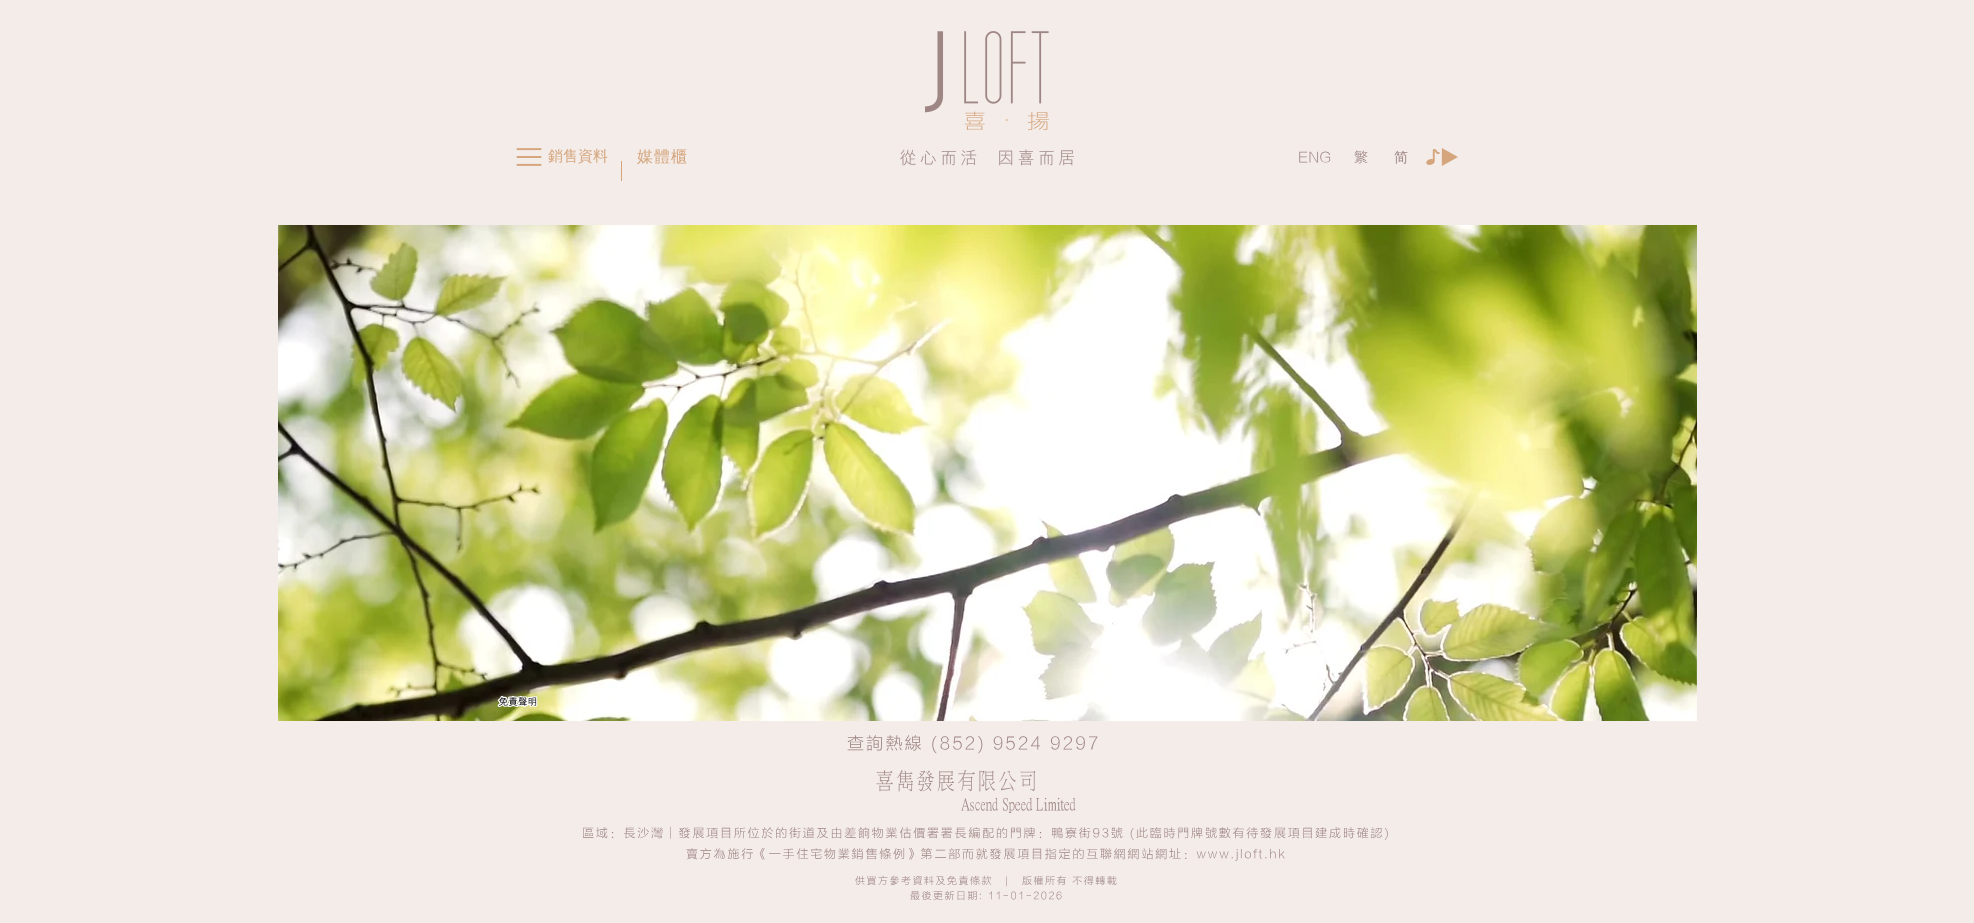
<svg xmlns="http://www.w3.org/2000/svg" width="1974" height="923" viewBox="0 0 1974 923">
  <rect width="100%" height="100%" fill="#f4ece9"/>
  <image x="925" y="31" width="124" height="99" href="img1.png"/>
  <image x="516" y="148" width="26" height="18" href="img2.png"/>
  <text x="548" y="161" font-family="WenQuanYi Zen Hei" font-size="15" font-weight="500" fill="#d5a67d">銷售資料</text>
  <text x="637" y="162" font-family="WenQuanYi Zen Hei" font-size="16" font-weight="500" letter-spacing="1" fill="#d5a67d">媒體櫃</text>
  <image x="900" y="149" width="174" height="17" href="img3.png"/>
  <text x="1298" y="162" font-family="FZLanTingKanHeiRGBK" font-size="14" fill="#9e8685">ENG</text>
  <text x="1354" y="162" font-family="FZLanTingKanHeiRGBK" font-size="14" fill="#9e8685">繁</text>
  <text x="1394" y="162" font-family="WenQuanYi Zen Hei" font-size="14" font-weight="500" fill="#9e8685">简</text>
  <image x="1426" y="149" width="14" height="16" href="img4.png"/>
  <image x="1441" y="148" width="17" height="18" href="img5.png"/>
  <rect x="621" y="161" width="1" height="20" fill="#d5a67d"/>
  <image x="278" y="225" width="1419" height="496" href="img6.png"/>
  <image x="497" y="695" width="41" height="13" href="img7.png"/>
  <text x="847" y="749" font-family="FZLanTingKanHeiRGBK" font-size="17" letter-spacing="2.25" fill="#9e8685">查詢熱線 (852) 9524 9297</text>
  <image x="876" y="770" width="200" height="43" href="img8.png"/>
  <text x="582" y="837" font-family="FZLanTingKanHeiRGBK" font-size="12" letter-spacing="1.8" fill="#9e8685">區域：長沙灣︱發展項目所位於的街道及由差餉物業估價署署長編配的門牌：鴨寮街93號 (此臨時門牌號數有待發展項目建成時確認)</text>
  <text x="686" y="858" font-family="FZLanTingKanHeiRGBK" font-size="12" letter-spacing="1.8" fill="#9e8685">賣方為施行《一手住宅物業銷售條例》第二部而就發展項目指定的互聯網網站網址：www.jloft.hk</text>
  <text x="855" y="884" font-family="FZLanTingKanHeiRGBK" font-size="10" letter-spacing="1.5" fill="#9e8685">供買方參考資料及免責條款</text>
  <text x="1005" y="884" font-family="FZLanTingKanHeiRGBK" font-size="10" letter-spacing="1.5" fill="#9e8685">|</text>
  <text x="1022" y="884" font-family="FZLanTingKanHeiRGBK" font-size="10" letter-spacing="1.5" fill="#9e8685">版權所有 不得轉載</text>
  <text x="910" y="899" font-family="FZLanTingKanHeiRGBK" font-size="10" letter-spacing="1.5" fill="#9e8685">最後更新日期: 11-01-2026</text>
</svg>
